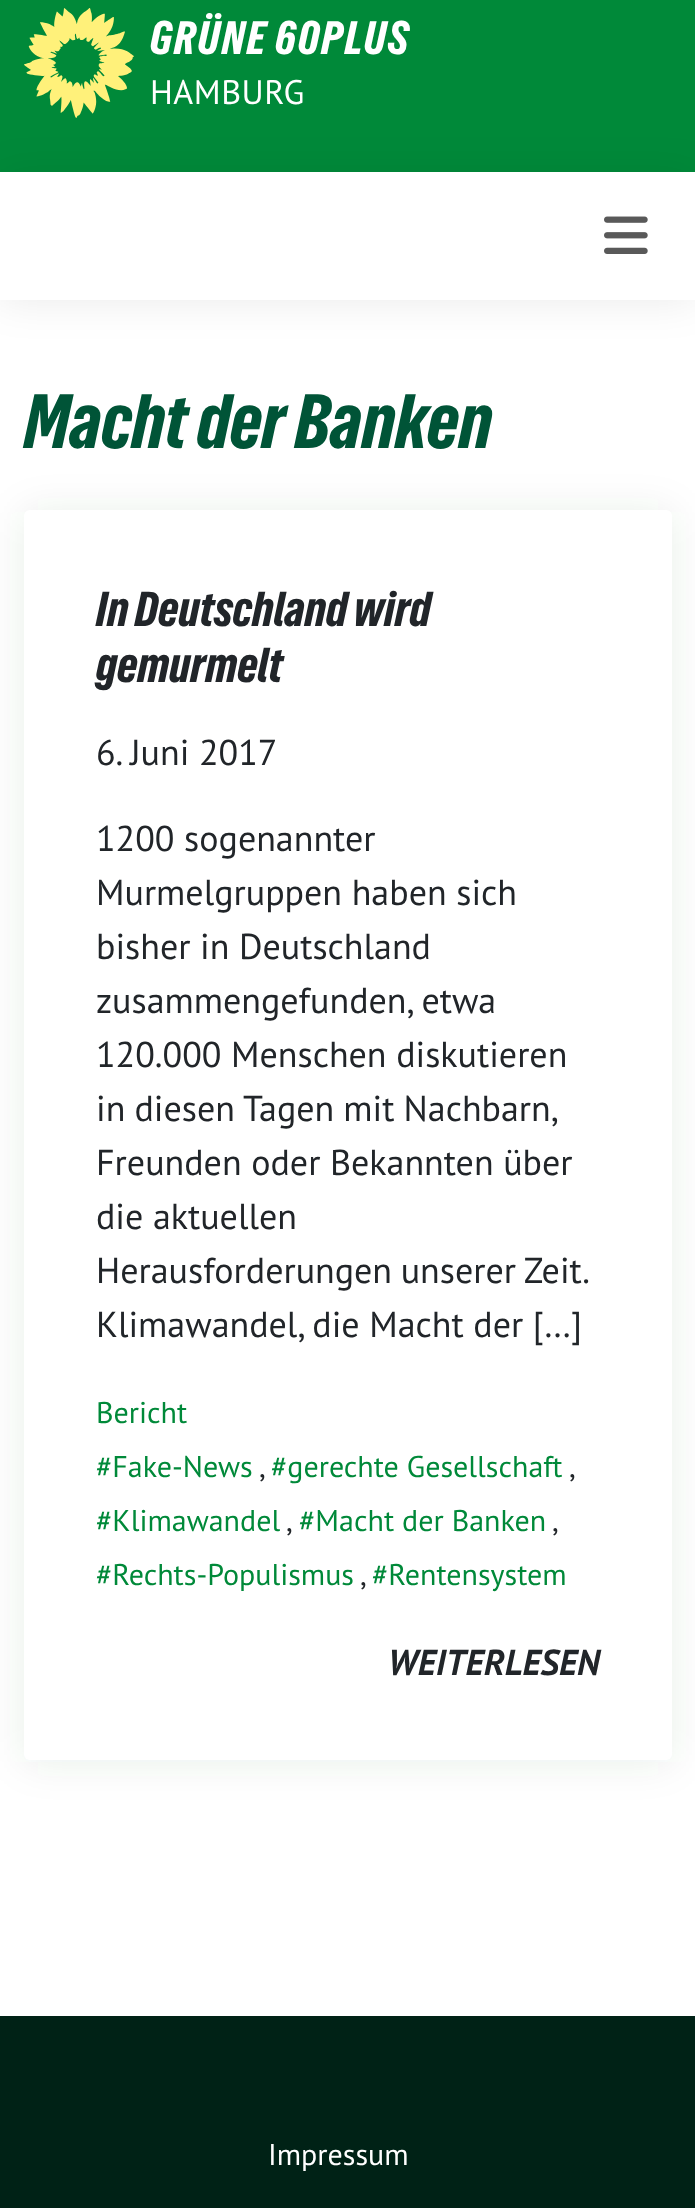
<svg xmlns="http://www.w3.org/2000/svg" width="695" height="2208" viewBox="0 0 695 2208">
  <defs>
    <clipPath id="clip1"><path d="M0 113H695V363H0ZM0 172H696V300H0Z" clip-rule="evenodd"/></clipPath>
    <filter id="blur1" x="-50%" y="-200%" width="200%" height="500%"><feGaussianBlur stdDeviation="20"/></filter>
  </defs>
  <rect width="100%" height="100%" fill="#ffffff"/>
  <rect x="0" y="0" width="695" height="172" fill="#008939"/>
  <image x="24" y="8" width="110" height="110" href="img1.png"/>
  <text x="150" y="54" font-family="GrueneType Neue" font-size="44" letter-spacing="2" fill="#ffffff">GRÜNE 60PLUS</text>
  <text x="150" y="104" font-family="PT Sans" font-size="34" letter-spacing="0.5" fill="#ffffff">HAMBURG</text>
  <g clip-path="url(#clip1)">
    <rect x="0" y="174" width="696" height="128" fill="#000000" fill-opacity="0.08" filter="url(#blur1)"/>
  </g>
  <image x="604" y="216" width="44" height="38" href="img2.png"/>
  <text x="24" y="448" font-family="GrueneType Neue" font-size="72" fill="#005437">Macht der Banken</text>
  <rect x="24" y="512" width="648" height="1250" rx="6" fill="#005437" fill-opacity="0.09" filter="url(#blur1)"/>
  <rect x="24" y="510" width="648" height="1250" rx="6" fill="#ffffff"/>
  <text x="96" y="626" font-family="GrueneType Neue" font-size="46" fill="#212529">In Deutschland wird</text>
  <text x="96" y="682" font-family="GrueneType Neue" font-size="46" fill="#212529">gemurmelt</text>
  <text x="96" y="765" font-family="PT Sans" font-size="36" fill="#212529">6. Juni 2017</text>
  <text x="96" y="851" font-family="PT Sans" font-size="36" fill="#212529">1200 sogenannter</text>
  <text x="96" y="905" font-family="PT Sans" font-size="36" fill="#212529">Murmelgruppen haben sich</text>
  <text x="96" y="959" font-family="PT Sans" font-size="36" fill="#212529">bisher in Deutschland</text>
  <text x="96" y="1013" font-family="PT Sans" font-size="36" fill="#212529">zusammengefunden, etwa</text>
  <text x="96" y="1067" font-family="PT Sans" font-size="36" fill="#212529">120.000 Menschen diskutieren</text>
  <text x="96" y="1121" word-spacing="-0.5" font-family="PT Sans" font-size="36" fill="#212529">in diesen Tagen mit Nachbarn,</text>
  <text x="96" y="1175" font-family="PT Sans" font-size="36" fill="#212529">Freunden oder Bekannten über</text>
  <text x="96" y="1229" font-family="PT Sans" font-size="36" fill="#212529">die aktuellen</text>
  <text x="96" y="1283" word-spacing="-1" font-family="PT Sans" font-size="36" fill="#212529">Herausforderungen unserer Zeit.</text>
  <text x="96" y="1337" font-family="PT Sans" font-size="36" fill="#212529">Klimawandel, die Macht der […]</text>
  <text x="96" y="1423" font-family="PT Sans" font-size="30" fill="#008939">Bericht</text>
  <text x="96" y="1477" font-family="PT Sans" font-size="30" fill="#008939">#Fake-News</text>
  <text x="259" y="1477" font-family="PT Sans" font-size="30" fill="#212529">,</text>
  <text x="271" y="1477" font-family="PT Sans" font-size="30" fill="#008939">#gerechte Gesellschaft</text>
  <text x="569" y="1477" font-family="PT Sans" font-size="30" fill="#212529">,</text>
  <text x="96" y="1531" font-family="PT Sans" font-size="30" fill="#008939">#Klimawandel</text>
  <text x="286" y="1531" font-family="PT Sans" font-size="30" fill="#212529">,</text>
  <text x="299" y="1531" font-family="PT Sans" font-size="30" fill="#008939">#Macht der Banken</text>
  <text x="552" y="1531" font-family="PT Sans" font-size="30" fill="#212529">,</text>
  <text x="96" y="1585" font-family="PT Sans" font-size="30" fill="#008939">#Rechts-Populismus</text>
  <text x="360" y="1585" font-family="PT Sans" font-size="30" fill="#212529">,</text>
  <text x="372" y="1585" font-family="PT Sans" font-size="30" fill="#008939">#Rentensystem</text>
  <text x="388" y="1675" font-family="PT Sans" font-size="36" font-weight="bold" font-style="italic" fill="#212529">WEITERLESEN</text>
  <rect x="0" y="2016" width="695" height="192" fill="#002216"/>
  <text x="268" y="2165" font-family="PT Sans" font-size="30" fill="#ffffff">Impressum</text>
</svg>
